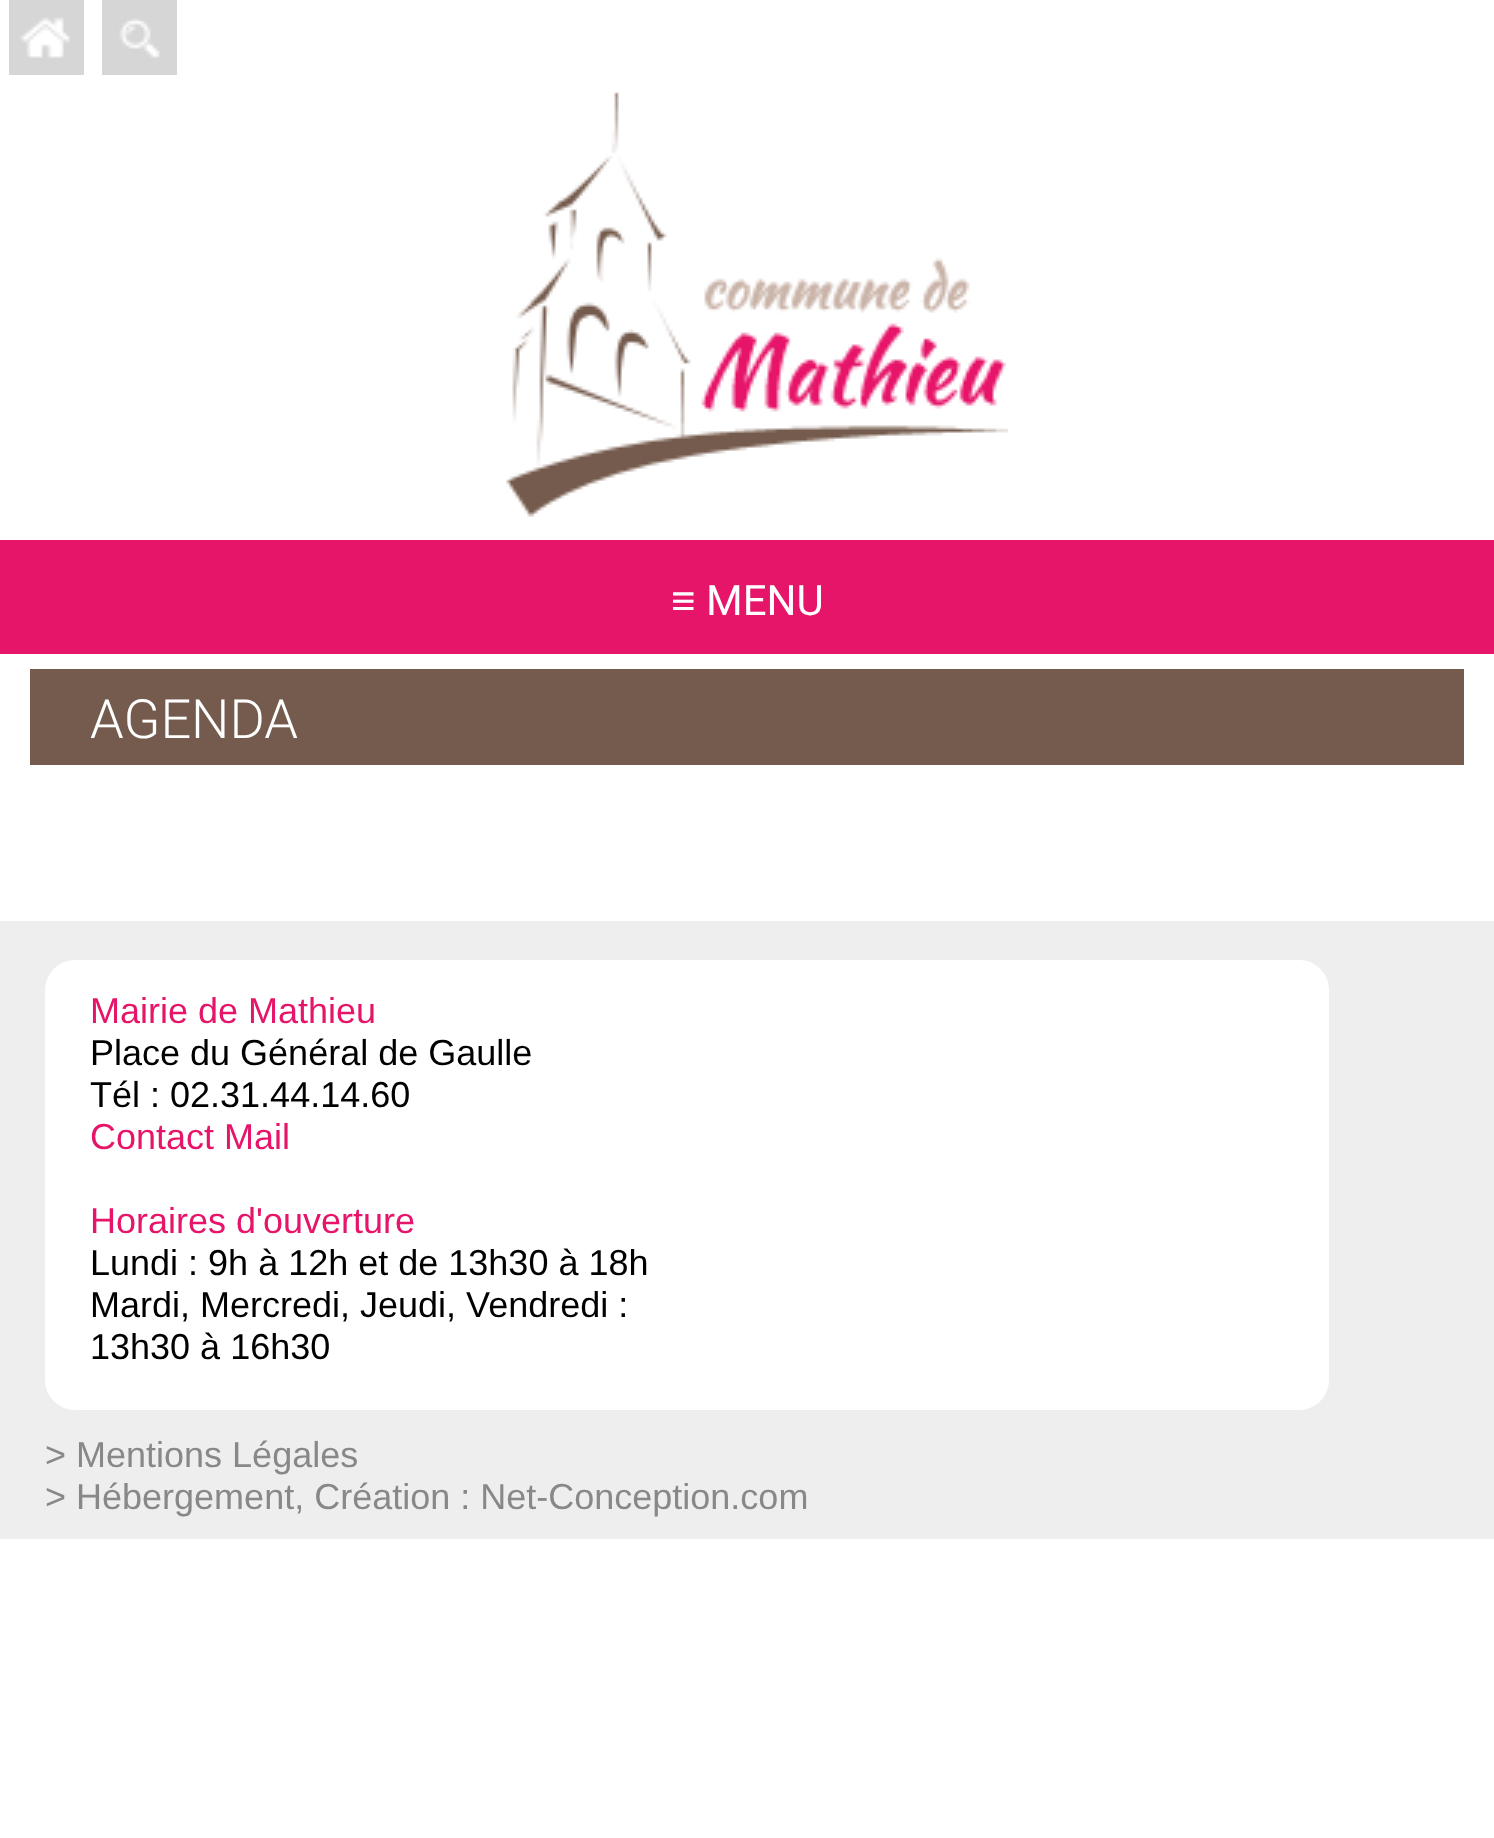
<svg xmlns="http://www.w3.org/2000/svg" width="1494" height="1838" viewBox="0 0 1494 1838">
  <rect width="100%" height="100%" fill="#ffffff"/>
  <rect x="9" y="0" width="75" height="75" fill="#d6d6d6"/>
  <image x="20" y="17" width="50" height="41" href="img1.png"/>
  <rect x="102" y="0" width="75" height="75" fill="#d6d6d6"/>
  <image x="119" y="18" width="41" height="40" href="img2.png"/>
  <image x="506" y="92" width="502" height="425" href="img3.png"/>
  <rect x="0" y="540" width="1494" height="114" fill="#e61569"/>
  <text x="671" y="615" font-family="Liberation Sans" font-size="42" fill="#ffffff">≡</text>
  <text x="706" y="615" font-family="Roboto" font-size="42" fill="#ffffff">MENU</text>
  <rect x="30" y="669" width="1434" height="96" fill="#755b4d"/>
  <text x="90" y="738" font-family="Roboto" font-size="54" font-weight="300" fill="#ffffff">AGENDA</text>
  <rect x="0" y="921" width="1494" height="618" fill="#eeeeee"/>
  <rect x="45" y="960" width="1284" height="450" rx="30" fill="#ffffff"/>
  <text x="90" y="1023" font-family="Liberation Sans" font-size="36" fill="#e61569">Mairie de Mathieu</text>
  <text x="90" y="1065" font-family="Liberation Sans" font-size="36" fill="#000000">Place du Général de Gaulle</text>
  <text x="90" y="1107" font-family="Liberation Sans" font-size="36" fill="#000000">Tél : 02.31.44.14.60</text>
  <text x="90" y="1149" font-family="Liberation Sans" font-size="36" fill="#e61569">Contact Mail</text>
  <text x="90" y="1233" font-family="Liberation Sans" font-size="36" fill="#e61569">Horaires d'ouverture</text>
  <text x="90" y="1275" font-family="Liberation Sans" font-size="36" fill="#000000">Lundi : 9h à 12h et de 13h30 à 18h</text>
  <text x="90" y="1317" font-family="Liberation Sans" font-size="36" fill="#000000">Mardi, Mercredi, Jeudi, Vendredi :</text>
  <text x="90" y="1359" font-family="Liberation Sans" font-size="36" fill="#000000">13h30 à 16h30</text>
  <text x="45" y="1467" font-family="Liberation Sans" font-size="36" fill="#888888">&gt; Mentions Légales</text>
  <text x="45" y="1509" font-family="Liberation Sans" font-size="36" fill="#888888">&gt; Hébergement, Création : Net-Conception.com</text>
</svg>
